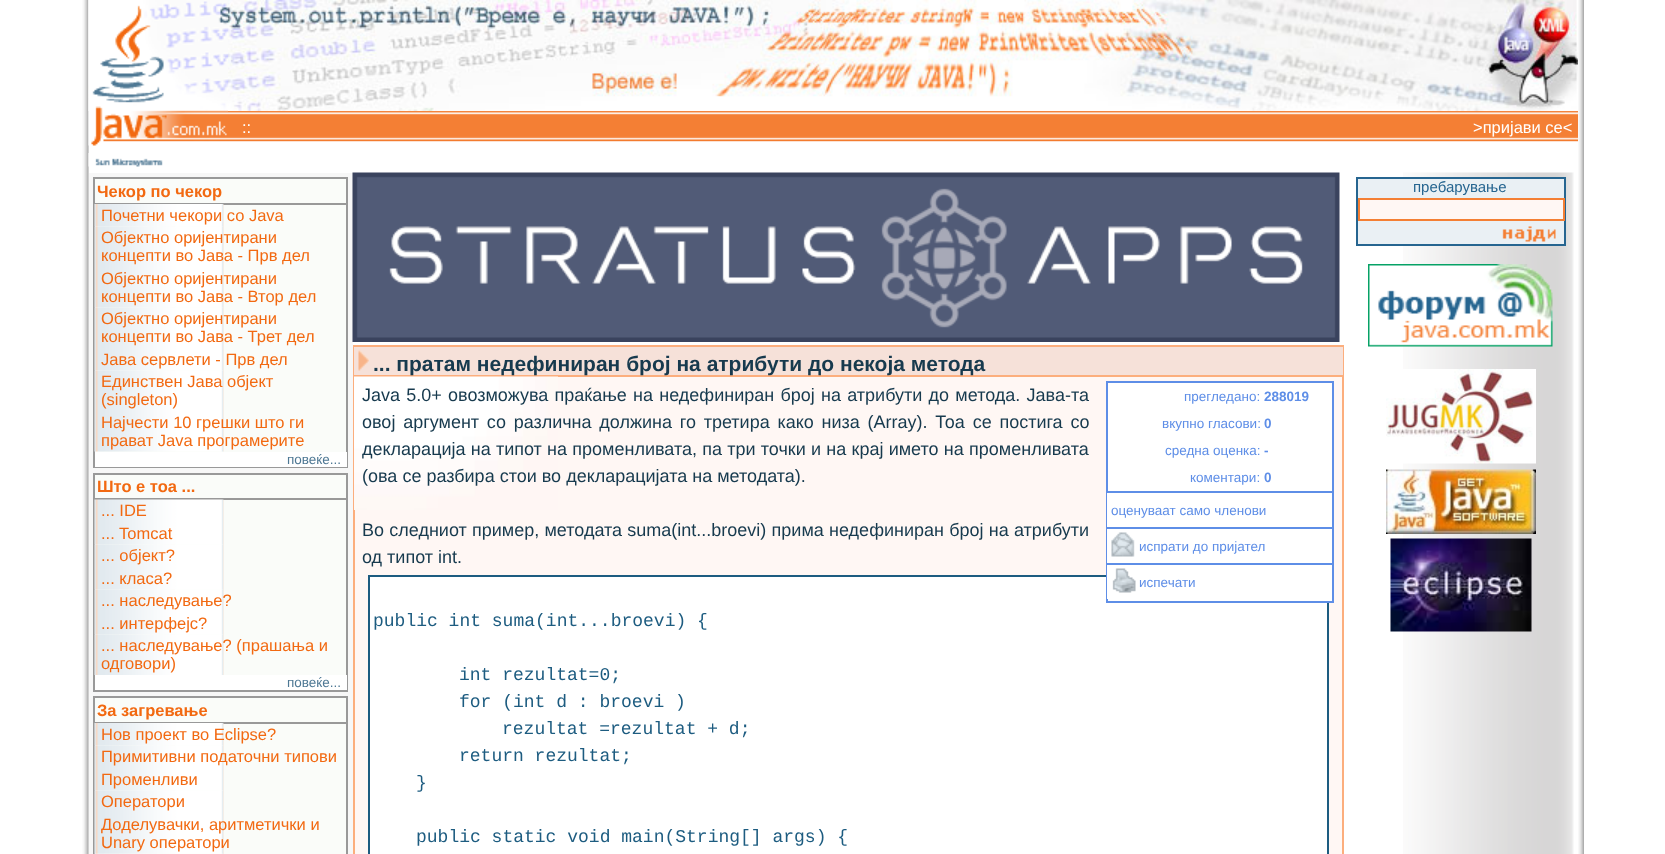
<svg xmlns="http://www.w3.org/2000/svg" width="1665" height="854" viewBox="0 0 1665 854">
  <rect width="100%" height="100%" fill="#ffffff"/>
  <image x="82" y="0" width="7" height="854" href="img1.png"/>
  <image x="88" y="0" width="1490" height="111" href="img2.png"/>
  <image x="88" y="0" width="140" height="146" href="img3.png"/>
  <image x="228" y="111" width="1350" height="31" href="img4.png"/>
  <text x="242" y="133" font-family="Liberation Sans" font-size="16.5" fill="#ffffff">::</text>
  <text x="1473" y="133" font-family="Liberation Sans" font-size="16.5" fill="#ffffff">&gt;пријави се&lt;</text>
  <image x="1578" y="0" width="6" height="854" href="img5.png"/>
  <image x="88" y="153" width="75" height="14" href="img6.png"/>
  <rect x="89" y="173" width="264" height="681" fill="#f7f7f7"/>
  <rect x="95" y="179" width="251" height="273" fill="#fafcf9"/>
  <rect x="94" y="178" width="253" height="289" fill="none" stroke="#999999" stroke-width="2"/>
  <rect x="95" y="203" width="252" height="2" fill="#999999"/>
  <text x="97" y="197" font-family="Liberation Sans" font-size="16.5" font-weight="bold" fill="#f26911">Чекор по чекор</text>
  <image x="94" y="204" width="130" height="23" href="img7.png"/>
  <text x="101" y="221" font-family="Liberation Sans" font-size="16.5" fill="#f26911">Почетни чекори со Java</text>
  <image x="94" y="226" width="130" height="41" href="img8.png"/>
  <text x="101" y="243" font-family="Liberation Sans" font-size="16.5" fill="#f26911">Објектно оријентирани</text>
  <text x="101" y="261" font-family="Liberation Sans" font-size="16.5" fill="#f26911">концепти во Јава - Прв дел</text>
  <image x="94" y="267" width="130" height="41" href="img9.png"/>
  <text x="101" y="284" font-family="Liberation Sans" font-size="16.5" fill="#f26911">Објектно оријентирани</text>
  <text x="101" y="302" font-family="Liberation Sans" font-size="16.5" fill="#f26911">концепти во Јава - Втор дел</text>
  <image x="94" y="307" width="130" height="41" href="img8.png"/>
  <text x="101" y="324" font-family="Liberation Sans" font-size="16.5" fill="#f26911">Објектно оријентирани</text>
  <text x="101" y="342" font-family="Liberation Sans" font-size="16.5" fill="#f26911">концепти во Јава - Трет дел</text>
  <image x="94" y="348" width="130" height="23" href="img10.png"/>
  <text x="101" y="365" font-family="Liberation Sans" font-size="16.5" fill="#f26911">Јава сервлети - Прв дел</text>
  <image x="94" y="370" width="130" height="41" href="img8.png"/>
  <text x="101" y="387" font-family="Liberation Sans" font-size="16.5" fill="#f26911">Единствен Јава објект</text>
  <text x="101" y="405" font-family="Liberation Sans" font-size="16.5" fill="#f26911">(singleton)</text>
  <image x="94" y="411" width="130" height="41" href="img9.png"/>
  <text x="101" y="428" font-family="Liberation Sans" font-size="16.5" fill="#f26911">Најчести 10 грешки што ги</text>
  <text x="101" y="446" font-family="Liberation Sans" font-size="16.5" fill="#f26911">прават Java програмерите</text>
  <rect x="95" y="452" width="252" height="15" fill="#ffffff"/>
  <text x="287" y="464" font-family="Liberation Sans" font-size="13.5" fill="#4e7894">повеќе...</text>
  <rect x="95" y="475" width="251" height="200" fill="#fafcf9"/>
  <rect x="94" y="474" width="253" height="217" fill="none" stroke="#999999" stroke-width="2"/>
  <rect x="95" y="498" width="252" height="2" fill="#999999"/>
  <text x="97" y="492" font-family="Liberation Sans" font-size="16.5" font-weight="bold" fill="#f26911">Што е тоа ...</text>
  <image x="94" y="499" width="130" height="23" href="img11.png"/>
  <text x="101" y="516" font-family="Liberation Sans" font-size="16.5" fill="#f26911">... IDE</text>
  <image x="94" y="522" width="130" height="23" href="img10.png"/>
  <text x="101" y="539" font-family="Liberation Sans" font-size="16.5" fill="#f26911">... Tomcat</text>
  <image x="94" y="544" width="130" height="23" href="img12.png"/>
  <text x="101" y="561" font-family="Liberation Sans" font-size="16.5" fill="#f26911">... објект?</text>
  <image x="94" y="567" width="130" height="23" href="img10.png"/>
  <text x="101" y="584" font-family="Liberation Sans" font-size="16.5" fill="#f26911">... класа?</text>
  <image x="94" y="589" width="130" height="23" href="img12.png"/>
  <text x="101" y="606" font-family="Liberation Sans" font-size="16.5" fill="#f26911">... наследување?</text>
  <image x="94" y="612" width="130" height="23" href="img10.png"/>
  <text x="101" y="629" font-family="Liberation Sans" font-size="16.5" fill="#f26911">... интерфејс?</text>
  <image x="94" y="634" width="130" height="41" href="img8.png"/>
  <text x="101" y="651" font-family="Liberation Sans" font-size="16.5" fill="#f26911">... наследување? (прашања и</text>
  <text x="101" y="669" font-family="Liberation Sans" font-size="16.5" fill="#f26911">одговори)</text>
  <rect x="95" y="675" width="252" height="15" fill="#ffffff"/>
  <text x="287" y="687" font-family="Liberation Sans" font-size="13.5" fill="#4e7894">повеќе...</text>
  <rect x="94" y="697" width="253" height="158" fill="#fafcf9" stroke="#999999" stroke-width="2"/>
  <rect x="95" y="722" width="252" height="2" fill="#999999"/>
  <text x="97" y="716" font-family="Liberation Sans" font-size="16.5" font-weight="bold" fill="#f26911">За загревање</text>
  <image x="94" y="723" width="130" height="23" href="img13.png"/>
  <text x="101" y="740" font-family="Liberation Sans" font-size="16.5" fill="#f26911">Нов проект во Eclipse?</text>
  <image x="94" y="745" width="130" height="23" href="img14.png"/>
  <text x="101" y="762" font-family="Liberation Sans" font-size="16.5" fill="#f26911">Примитивни податочни типови</text>
  <image x="94" y="768" width="130" height="23" href="img10.png"/>
  <text x="101" y="785" font-family="Liberation Sans" font-size="16.5" fill="#f26911">Променливи</text>
  <image x="94" y="790" width="130" height="23" href="img12.png"/>
  <text x="101" y="807" font-family="Liberation Sans" font-size="16.5" fill="#f26911">Оператори</text>
  <image x="94" y="813" width="130" height="41" href="img9.png"/>
  <text x="101" y="830" font-family="Liberation Sans" font-size="16.5" fill="#f26911">Доделувачки, аритметички и</text>
  <text x="101" y="848" font-family="Liberation Sans" font-size="16.5" fill="#f26911">Unary оператори</text>
  <image x="94" y="853" width="130" height="1" href="img15.png"/>
  <image x="352" y="172" width="988" height="170" href="img16.png"/>
  <rect x="355" y="377" width="987" height="477" fill="#fff7f4"/>
  <rect x="354" y="346" width="989" height="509" fill="none" stroke="#fcae7d" stroke-width="2"/>
  <rect x="354" y="347" width="989" height="28" fill="#f6e1d9"/>
  <rect x="354" y="375" width="989" height="2" fill="#fcae7d"/>
  <image x="358" y="349" width="11" height="22" href="img17.png"/>
  <text x="373" y="371" font-family="Liberation Sans" font-size="21" font-weight="bold" fill="#173a4e">... пратам недефиниран број на атрибути до некоја метода</text>
  <image x="354" y="376" width="204" height="134" href="img18.png"/>
  <text x="362" y="401" word-spacing="1.25" font-family="Liberation Sans" font-size="18" fill="#173a4e">Java 5.0+ овозможува праќање на недефиниран број на атрибути до метода. Јава-та</text>
  <rect x="369" y="576" width="959" height="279" fill="#ffffff" stroke="#1d5c80" stroke-width="2"/>
  <rect x="1107" y="382" width="226" height="220" fill="#ffffff" stroke="#5e8ee7" stroke-width="2"/>
  <text x="1184" y="401" font-family="Liberation Sans" font-size="13.5" fill="#5e8ee7">прегледано:</text>
  <text x="1264" y="401" font-family="Liberation Sans" font-size="13.5" font-weight="bold" fill="#5e8ee7">288019</text>
  <text x="1162" y="428" font-family="Liberation Sans" font-size="13.5" fill="#5e8ee7">вкупно гласови:</text>
  <text x="1264" y="428" font-family="Liberation Sans" font-size="13.5" font-weight="bold" fill="#5e8ee7">0</text>
  <text x="1165" y="455" font-family="Liberation Sans" font-size="13.5" fill="#5e8ee7">средна оценка:</text>
  <text x="1264" y="455" font-family="Liberation Sans" font-size="13.5" font-weight="bold" fill="#5e8ee7">-</text>
  <text x="1190" y="482" font-family="Liberation Sans" font-size="13.5" fill="#5e8ee7">коментари:</text>
  <text x="1264" y="482" font-family="Liberation Sans" font-size="13.5" font-weight="bold" fill="#5e8ee7">0</text>
  <rect x="1107" y="493" width="1" height="34" fill="#ffffff"/>
  <rect x="1107" y="491" width="225" height="2" fill="#5e8ee7"/>
  <text x="1111" y="515" font-family="Liberation Sans" font-size="13.5" fill="#5e8ee7">оценуваат само членови</text>
  <rect x="1107" y="529" width="1" height="34" fill="#ffffff"/>
  <rect x="1107" y="527" width="225" height="2" fill="#5e8ee7"/>
  <image x="1111" y="532" width="24" height="25" href="img19.png"/>
  <text x="1139" y="551" font-family="Liberation Sans" font-size="13.5" fill="#5e8ee7">испрати до пријател</text>
  <rect x="1107" y="565" width="1" height="34" fill="#ffffff"/>
  <rect x="1107" y="563" width="225" height="2" fill="#5e8ee7"/>
  <image x="1112" y="568" width="24" height="25" href="img20.png"/>
  <text x="1139" y="587" font-family="Liberation Sans" font-size="13.5" fill="#5e8ee7">испечати</text>
  <text x="362" y="428" word-spacing="2.75" font-family="Liberation Sans" font-size="18" fill="#173a4e">овој аргумент со различна должина го третира како низа (Array). Тоа се постига со</text>
  <text x="362" y="455" word-spacing="0.25" font-family="Liberation Sans" font-size="18" fill="#173a4e">декларација на типот на променливата, па три точки и на крај името на променливата</text>
  <text x="362" y="482" font-family="Liberation Sans" font-size="18" fill="#173a4e">(ова се разбира стои во декларацијата на методата).</text>
  <text x="362" y="536" word-spacing="0.25" font-family="Liberation Sans" font-size="18" fill="#173a4e">Во следниот пример, методата suma(int...broevi) прима недефиниран број на атрибути</text>
  <text x="362" y="563" font-family="Liberation Sans" font-size="18" fill="#173a4e">од типот int.</text>
  <text x="373" y="626" font-family="Liberation Mono" font-size="18" fill="#1d5c80">public int suma(int...broevi) {</text>
  <text x="459" y="680" font-family="Liberation Mono" font-size="18" fill="#1d5c80">int rezultat=0;</text>
  <text x="459" y="707" font-family="Liberation Mono" font-size="18" fill="#1d5c80">for (int d : broevi )</text>
  <text x="502" y="734" font-family="Liberation Mono" font-size="18" fill="#1d5c80">rezultat =rezultat + d;</text>
  <text x="459" y="761" font-family="Liberation Mono" font-size="18" fill="#1d5c80">return rezultat;</text>
  <text x="416" y="788" font-family="Liberation Mono" font-size="18" fill="#1d5c80">}</text>
  <text x="416" y="842" font-family="Liberation Mono" font-size="18" fill="#1d5c80">public static void main(String[] args) {</text>
  <image x="1403" y="172" width="171" height="682" href="img21.png"/>
  <rect x="1357" y="178" width="208" height="67" fill="#eaf0f4" stroke="#266590" stroke-width="2"/>
  <text x="1413" y="192" font-family="Liberation Sans" font-size="15" fill="#266590">пребарување</text>
  <rect x="1359" y="199" width="205" height="21" fill="#fff7f4" stroke="#f47f34" stroke-width="2"/>
  <image x="1502" y="226" width="54" height="16" href="img22.png"/>
  <image x="1368" y="264" width="185" height="83" href="img23.png"/>
  <image x="1386" y="369" width="150" height="95" href="img24.png"/>
  <image x="1386" y="469" width="150" height="65" href="img25.png"/>
  <image x="1390" y="538" width="142" height="94" href="img26.png"/>
</svg>
